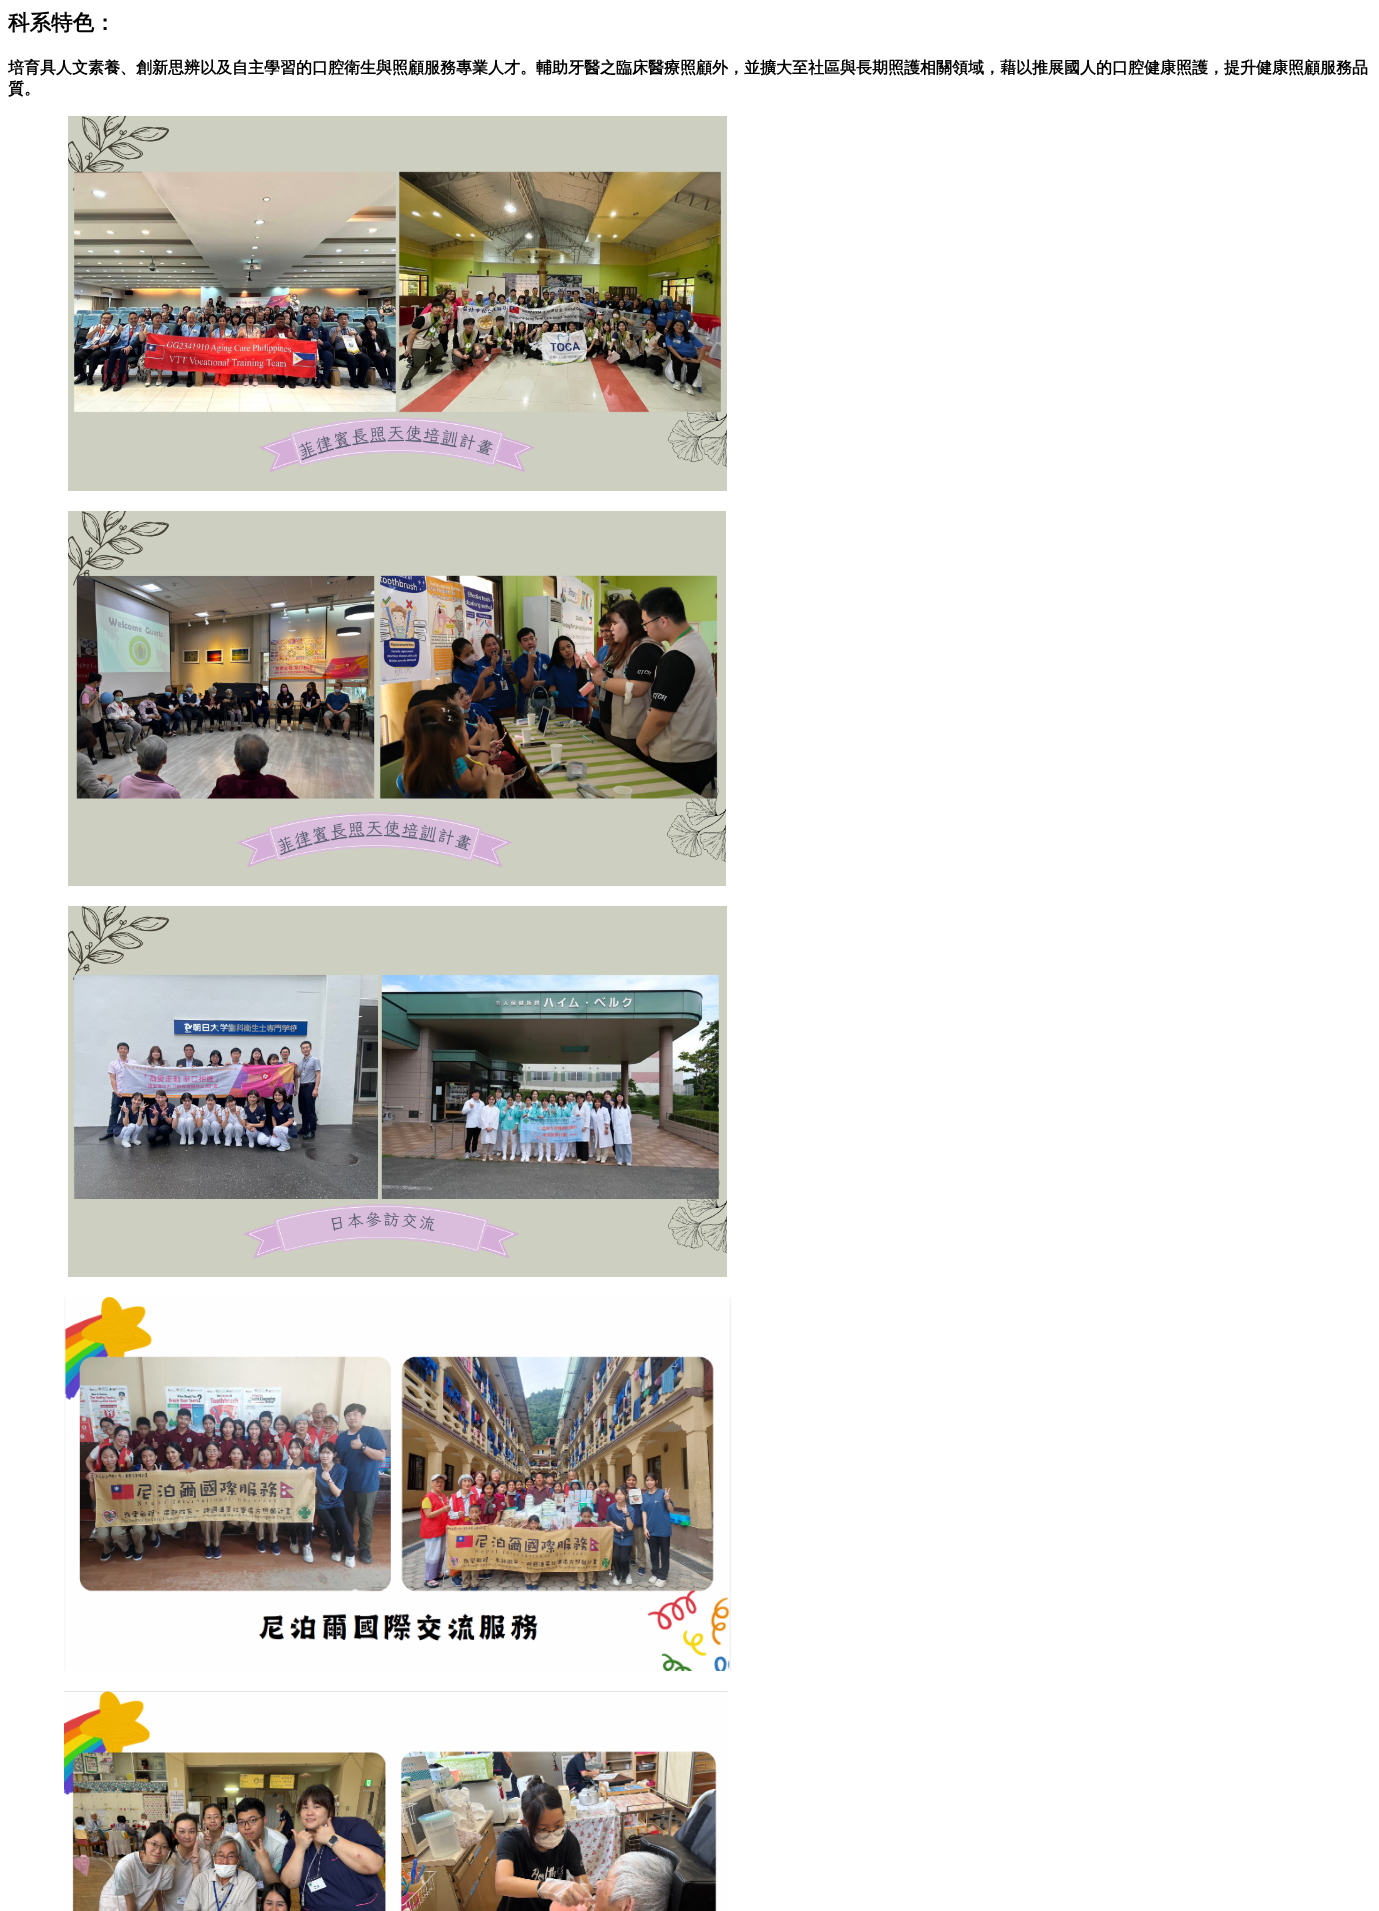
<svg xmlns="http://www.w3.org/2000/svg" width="1379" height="1911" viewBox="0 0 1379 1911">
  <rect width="100%" height="100%" fill="#ffffff"/>
  <text x="8" y="30" font-family="WenQuanYi Zen Hei" font-size="21.5" font-weight="bold" fill="#000000">科系特色：</text>
  <text x="8" y="73" font-family="WenQuanYi Zen Hei" font-size="16" font-weight="bold" fill="#000000">培育具人文素養、創新思辨以及自主學習的口腔衛生與照顧服務專業人才。輔助牙醫之臨床醫療照顧外，並擴大至社區與長期照護相關領域，藉以推展國人的口腔健康照護，提升健康照顧服務品</text>
  <text x="8" y="94" font-family="WenQuanYi Zen Hei" font-size="16" font-weight="bold" fill="#000000">質。</text>
  <image x="68" y="116" width="659" height="375" href="img1.png"/>
  <image x="68" y="511" width="658" height="375" href="img2.png"/>
  <image x="68" y="906" width="659" height="371" href="img3.png"/>
  <image x="64" y="1297" width="667" height="374" href="img4.png"/>
  <image x="64" y="1691" width="664" height="220" href="img5.png"/>
</svg>
